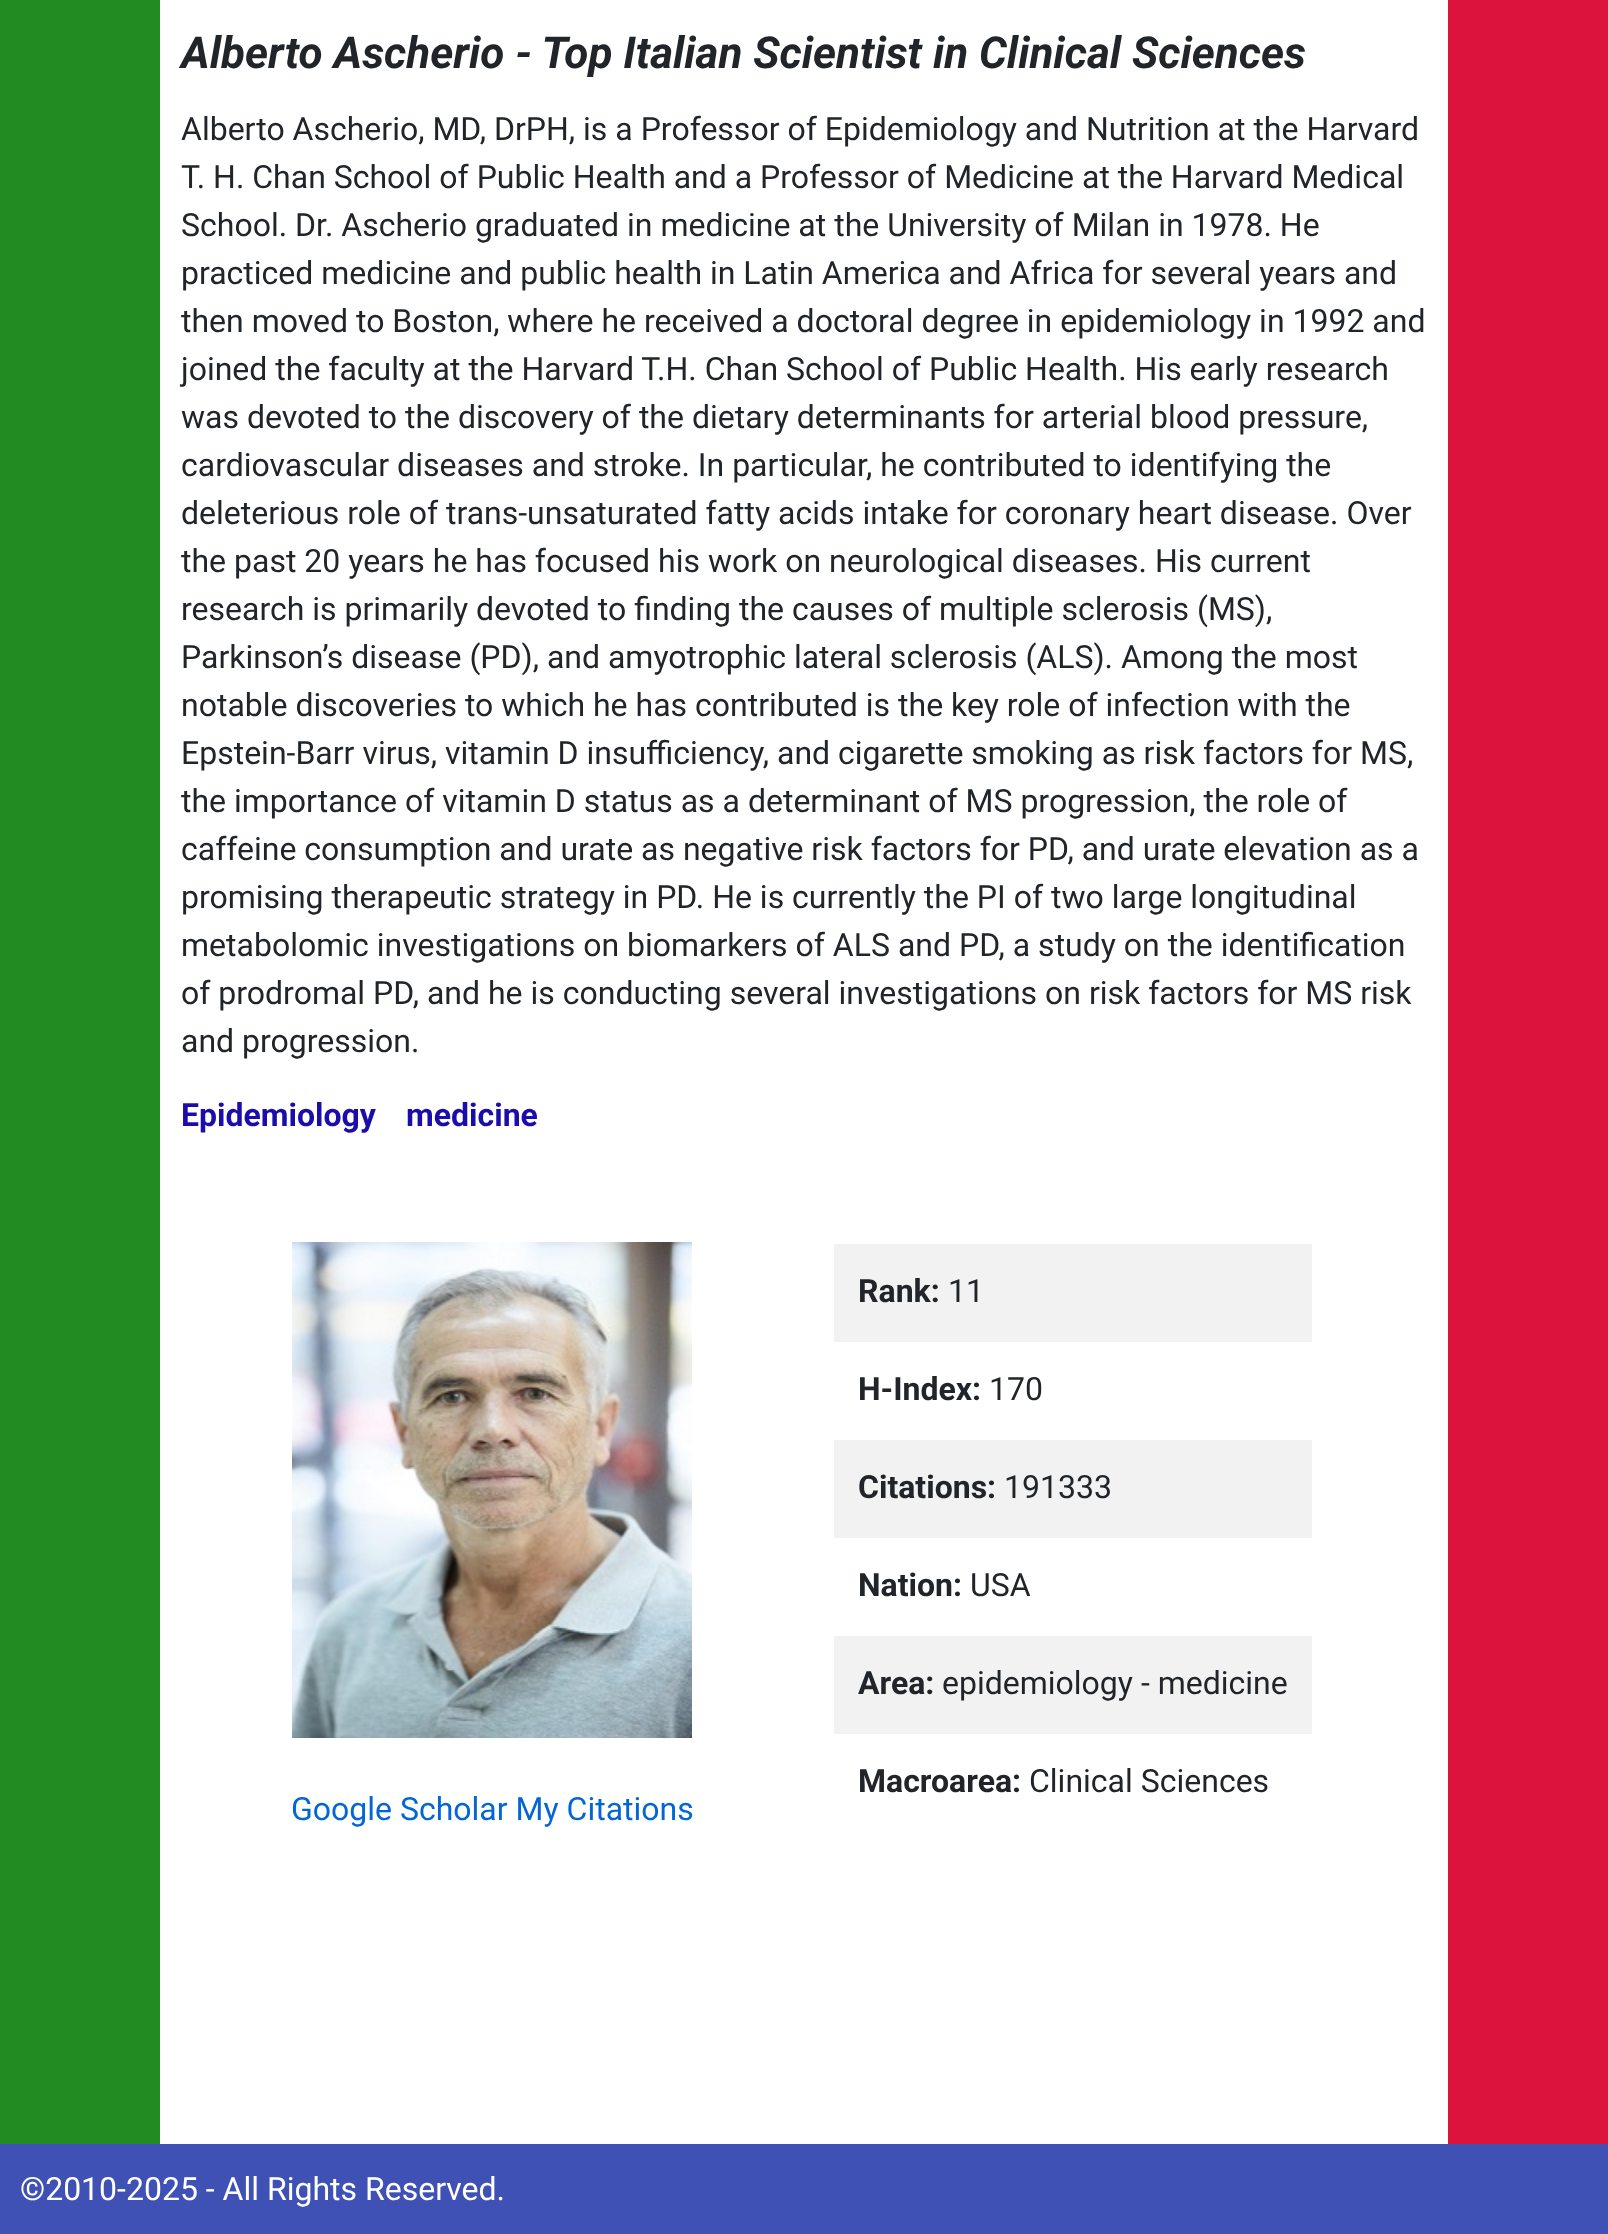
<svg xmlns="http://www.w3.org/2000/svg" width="1608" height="2234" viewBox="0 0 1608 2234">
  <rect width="100%" height="100%" fill="#ffffff"/>
  <rect x="0" y="0" width="160" height="2144" fill="#228b22"/>
  <text x="181" y="68" font-family="Roboto" font-size="44" font-weight="bold" font-style="italic" fill="#212529">Alberto Ascherio - Top Italian Scientist in Clinical Sciences</text>
  <text x="181" y="140" font-family="Roboto" font-size="32" fill="#212529">Alberto Ascherio, MD, DrPH, is a Professor of Epidemiology and Nutrition at the Harvard</text>
  <text x="181" y="188" font-family="Roboto" font-size="32" fill="#212529">T. H. Chan School of Public Health and a Professor of Medicine at the Harvard Medical</text>
  <text x="181" y="236" font-family="Roboto" font-size="32" fill="#212529">School. Dr. Ascherio graduated in medicine at the University of Milan in 1978. He</text>
  <text x="181" y="284" font-family="Roboto" font-size="32" fill="#212529">practiced medicine and public health in Latin America and Africa for several years and</text>
  <text x="181" y="332" font-family="Roboto" font-size="32" fill="#212529">then moved to Boston, where he received a doctoral degree in epidemiology in 1992 and</text>
  <text x="181" y="380" font-family="Roboto" font-size="32" fill="#212529">joined the faculty at the Harvard T.H. Chan School of Public Health. His early research</text>
  <text x="181" y="428" font-family="Roboto" font-size="32" fill="#212529">was devoted to the discovery of the dietary determinants for arterial blood pressure,</text>
  <text x="181" y="476" font-family="Roboto" font-size="32" fill="#212529">cardiovascular diseases and stroke. In particular, he contributed to identifying the</text>
  <text x="181" y="524" font-family="Roboto" font-size="32" fill="#212529">deleterious role of trans-unsaturated fatty acids intake for coronary heart disease. Over</text>
  <text x="181" y="572" font-family="Roboto" font-size="32" fill="#212529">the past 20 years he has focused his work on neurological diseases. His current</text>
  <text x="181" y="620" font-family="Roboto" font-size="32" fill="#212529">research is primarily devoted to finding the causes of multiple sclerosis (MS),</text>
  <text x="181" y="668" font-family="Roboto" font-size="32" fill="#212529">Parkinson’s disease (PD), and amyotrophic lateral sclerosis (ALS). Among the most</text>
  <text x="181" y="716" font-family="Roboto" font-size="32" fill="#212529">notable discoveries to which he has contributed is the key role of infection with the</text>
  <text x="181" y="764" font-family="Roboto" font-size="32" fill="#212529">Epstein-Barr virus, vitamin D insufficiency, and cigarette smoking as risk factors for MS,</text>
  <text x="181" y="812" font-family="Roboto" font-size="32" fill="#212529">the importance of vitamin D status as a determinant of MS progression, the role of</text>
  <text x="181" y="860" font-family="Roboto" font-size="32" fill="#212529">caffeine consumption and urate as negative risk factors for PD, and urate elevation as a</text>
  <text x="181" y="908" font-family="Roboto" font-size="32" fill="#212529">promising therapeutic strategy in PD. He is currently the PI of two large longitudinal</text>
  <text x="181" y="956" font-family="Roboto" font-size="32" fill="#212529">metabolomic investigations on biomarkers of ALS and PD, a study on the identification</text>
  <text x="181" y="1004" font-family="Roboto" font-size="32" fill="#212529">of prodromal PD, and he is conducting several investigations on risk factors for MS risk</text>
  <text x="181" y="1052" font-family="Roboto" font-size="32" fill="#212529">and progression.</text>
  <text x="181" y="1126" font-family="Roboto" font-size="32" font-weight="bold" fill="#1a0dab">Epidemiology</text>
  <text x="406" y="1126" font-family="Roboto" font-size="32" font-weight="bold" fill="#1a0dab">medicine</text>
  <rect x="834" y="1244" width="478" height="98" fill="#f2f2f2"/>
  <text x="858" y="1302" font-family="Roboto" font-size="32" font-weight="bold" fill="#212529">Rank:</text>
  <text x="948" y="1302" font-family="Roboto" font-size="32" fill="#212529">11</text>
  <text x="858" y="1400" font-family="Roboto" font-size="32" font-weight="bold" fill="#212529">H-Index:</text>
  <text x="989" y="1400" font-family="Roboto" font-size="32" fill="#212529">170</text>
  <rect x="834" y="1440" width="478" height="98" fill="#f2f2f2"/>
  <text x="858" y="1498" font-family="Roboto" font-size="32" font-weight="bold" fill="#212529">Citations:</text>
  <text x="1004" y="1498" font-family="Roboto" font-size="32" fill="#212529">191333</text>
  <text x="858" y="1596" font-family="Roboto" font-size="32" font-weight="bold" fill="#212529">Nation:</text>
  <text x="970" y="1596" font-family="Roboto" font-size="32" fill="#212529">USA</text>
  <rect x="834" y="1636" width="478" height="98" fill="#f2f2f2"/>
  <text x="858" y="1694" font-family="Roboto" font-size="32" font-weight="bold" fill="#212529">Area:</text>
  <text x="942" y="1694" font-family="Roboto" font-size="32" fill="#212529">epidemiology - medicine</text>
  <text x="858" y="1792" font-family="Roboto" font-size="32" font-weight="bold" fill="#212529">Macroarea:</text>
  <text x="1029" y="1792" font-family="Roboto" font-size="32" fill="#212529">Clinical Sciences</text>
  <image x="292" y="1242" width="400" height="496" href="img1.png"/>
  <text x="291" y="1820" font-family="Roboto" font-size="32" fill="#0366d6">Google Scholar My Citations</text>
  <rect x="1448" y="0" width="160" height="2144" fill="#dc143c"/>
  <rect x="0" y="2144" width="1608" height="90" fill="#3f51b5"/>
  <text x="20" y="2200" font-family="Roboto" font-size="32" fill="#ffffff">©2010-2025 - All Rights Reserved.</text>
</svg>
